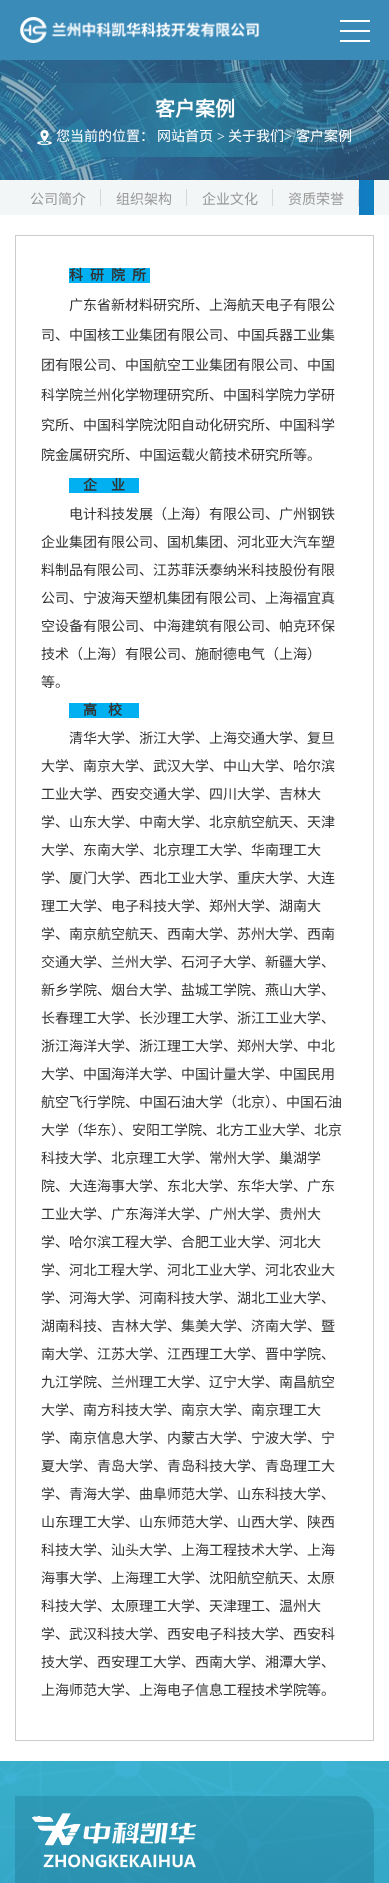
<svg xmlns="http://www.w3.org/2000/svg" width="389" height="1883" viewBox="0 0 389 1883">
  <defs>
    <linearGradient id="g1" gradientUnits="userSpaceOnUse" x1="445" y1="198" x2="359" y2="198"><stop offset="0" stop-color="#009bb3"/><stop offset="1" stop-color="#127bc2"/></linearGradient>
    <linearGradient id="g2" gradientUnits="userSpaceOnUse" x1="194" y1="1796" x2="195" y2="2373"><stop offset="0" stop-color="#14627c" stop-opacity="0.26"/><stop offset="1" stop-color="#1e6a95" stop-opacity="0.6"/></linearGradient>
  </defs>
  <rect width="100%" height="100%" fill="#ffffff"/>
  <rect x="0" y="0" width="389" height="60" fill="#3b8bb9"/>
  <image x="20" y="17" width="240" height="26" href="img1.png"/>
  <rect x="340" y="20" width="30" height="2" fill="#ffffff"/>
  <rect x="340" y="30" width="30" height="2" fill="#ffffff"/>
  <rect x="340" y="40" width="30" height="2" fill="#ffffff"/>
  <image x="0" y="60" width="389" height="120" href="img2.png"/>
  <image x="52" y="83" width="281" height="74" href="img3.png"/>
  <text x="155" y="116" font-family="Noto Sans CJK SC" font-size="20" font-weight="bold" fill="#ffffff">客户案例</text>
  <image x="37" y="130" width="15" height="15" href="img4.png"/>
  <text x="56" y="141" font-family="Noto Sans CJK SC" font-size="14" fill="#ffffff">您当前的位置：</text>
  <text x="157" y="141" font-family="Noto Sans CJK SC" font-size="14" fill="#ffffff">网站首页</text>
  <text x="217" y="141" font-family="Liberation Serif" font-size="14" fill="#ffffff">&gt;</text>
  <text x="228" y="141" font-family="Noto Sans CJK SC" font-size="14" fill="#ffffff">关于我们</text>
  <text x="284" y="141" font-family="Liberation Serif" font-size="14" fill="#ffffff">&gt;</text>
  <text x="296" y="141" font-family="Noto Sans CJK SC" font-size="14" fill="#ffffff">客户案例</text>
  <rect x="0" y="180" width="389" height="35" fill="#f3f6f7"/>
  <text x="30" y="204" font-family="Noto Sans CJK SC" font-size="14" fill="#999999">公司简介</text>
  <rect x="100" y="189" width="1" height="17" fill="#d8d8d8"/>
  <text x="116" y="204" font-family="Noto Sans CJK SC" font-size="14" fill="#999999">组织架构</text>
  <rect x="186" y="189" width="1" height="17" fill="#d8d8d8"/>
  <text x="202" y="204" font-family="Noto Sans CJK SC" font-size="14" fill="#999999">企业文化</text>
  <rect x="272" y="189" width="1" height="17" fill="#d8d8d8"/>
  <text x="288" y="204" font-family="Noto Sans CJK SC" font-size="14" fill="#999999">资质荣誉</text>
  <rect x="358" y="189" width="1" height="17" fill="#d8d8d8"/>
  <rect x="359" y="180" width="15" height="35" fill="url(#g1)"/>
  <rect x="15.5" y="235.5" width="358" height="1505" fill="none" stroke="#cccccc"/>
  <rect x="69" y="268" width="81" height="15" fill="#00b0f0"/>
  <text x="69" y="280" font-family="Noto Sans CJK SC" font-size="14" font-weight="bold" fill="#333333">科</text>
  <text x="90" y="280" font-family="Noto Sans CJK SC" font-size="14" font-weight="bold" fill="#333333">研</text>
  <text x="111" y="280" font-family="Noto Sans CJK SC" font-size="14" font-weight="bold" fill="#333333">院</text>
  <text x="132" y="280" font-family="Noto Sans CJK SC" font-size="14" font-weight="bold" fill="#333333">所</text>
  <text x="69" y="310" font-family="Noto Sans CJK SC" font-size="14" fill="#333333">广东省新材料研究所、上海航天电子有限公</text>
  <text x="41" y="340" font-family="Noto Sans CJK SC" font-size="14" fill="#333333">司、中国核工业集团有限公司、中国兵器工业集</text>
  <text x="41" y="370" font-family="Noto Sans CJK SC" font-size="14" fill="#333333">团有限公司、中国航空工业集团有限公司、中国</text>
  <text x="41" y="400" font-family="Noto Sans CJK SC" font-size="14" fill="#333333">科学院兰州化学物理研究所、中国科学院力学研</text>
  <text x="41" y="430" font-family="Noto Sans CJK SC" font-size="14" fill="#333333">究所、中国科学院沈阳自动化研究所、中国科学</text>
  <text x="41" y="460" font-family="Noto Sans CJK SC" font-size="14" fill="#333333">院金属研究所、中国运载火箭技术研究所等。</text>
  <rect x="69" y="478" width="70" height="15" fill="#00b0f0"/>
  <text x="83" y="490" font-family="Noto Sans CJK SC" font-size="14" font-weight="bold" fill="#333333">企</text>
  <text x="111" y="490" font-family="Noto Sans CJK SC" font-size="14" font-weight="bold" fill="#333333">业</text>
  <text x="69" y="519" font-family="Noto Sans CJK SC" font-size="14" fill="#333333">电计科技发展（上海）有限公司、广州钢铁</text>
  <text x="41" y="547" font-family="Noto Sans CJK SC" font-size="14" fill="#333333">企业集团有限公司、国机集团、河北亚大汽车塑</text>
  <text x="41" y="575" font-family="Noto Sans CJK SC" font-size="14" fill="#333333">料制品有限公司、江苏菲沃泰纳米科技股份有限</text>
  <text x="41" y="603" font-family="Noto Sans CJK SC" font-size="14" fill="#333333">公司、宁波海天塑机集团有限公司、上海福宜真</text>
  <text x="41" y="631" font-family="Noto Sans CJK SC" font-size="14" fill="#333333">空设备有限公司、中海建筑有限公司、帕克环保</text>
  <text x="41" y="659" font-family="Noto Sans CJK SC" font-size="14" fill="#333333">技术（上海）有限公司、施耐德电气（上海）</text>
  <text x="41" y="687" font-family="Noto Sans CJK SC" font-size="14" fill="#333333">等。</text>
  <rect x="69" y="703" width="70" height="15" fill="#00b0f0"/>
  <text x="83" y="715" font-family="Noto Sans CJK SC" font-size="14" font-weight="bold" fill="#333333">高</text>
  <text x="108" y="715" font-family="Noto Sans CJK SC" font-size="14" font-weight="bold" fill="#333333">校</text>
  <text x="69" y="743" font-family="Noto Sans CJK SC" font-size="14" fill="#333333">清华大学、浙江大学、上海交通大学、复旦</text>
  <text x="41" y="771" font-family="Noto Sans CJK SC" font-size="14" fill="#333333">大学、南京大学、武汉大学、中山大学、哈尔滨</text>
  <text x="41" y="799" font-family="Noto Sans CJK SC" font-size="14" fill="#333333">工业大学、西安交通大学、四川大学、吉林大</text>
  <text x="41" y="827" font-family="Noto Sans CJK SC" font-size="14" fill="#333333">学、山东大学、中南大学、北京航空航天、天津</text>
  <text x="41" y="855" font-family="Noto Sans CJK SC" font-size="14" fill="#333333">大学、东南大学、北京理工大学、华南理工大</text>
  <text x="41" y="883" font-family="Noto Sans CJK SC" font-size="14" fill="#333333">学、厦门大学、西北工业大学、重庆大学、大连</text>
  <text x="41" y="911" font-family="Noto Sans CJK SC" font-size="14" fill="#333333">理工大学、电子科技大学、郑州大学、湖南大</text>
  <text x="41" y="939" font-family="Noto Sans CJK SC" font-size="14" fill="#333333">学、南京航空航天、西南大学、苏州大学、西南</text>
  <text x="41" y="967" font-family="Noto Sans CJK SC" font-size="14" fill="#333333">交通大学、兰州大学、石河子大学、新疆大学、</text>
  <text x="41" y="995" font-family="Noto Sans CJK SC" font-size="14" fill="#333333">新乡学院、烟台大学、盐城工学院、燕山大学、</text>
  <text x="41" y="1023" font-family="Noto Sans CJK SC" font-size="14" fill="#333333">长春理工大学、长沙理工大学、浙江工业大学、</text>
  <text x="41" y="1051" font-family="Noto Sans CJK SC" font-size="14" fill="#333333">浙江海洋大学、浙江理工大学、郑州大学、中北</text>
  <text x="41" y="1079" font-family="Noto Sans CJK SC" font-size="14" fill="#333333">大学、中国海洋大学、中国计量大学、中国民用</text>
  <text x="41" y="1107" font-family="Noto Sans CJK SC" font-size="14" fill="#333333">航空飞行学院、中国石油大学（北京）、中国石油</text>
  <text x="41" y="1135" font-family="Noto Sans CJK SC" font-size="14" fill="#333333">大学（华东）、安阳工学院、北方工业大学、北京</text>
  <text x="41" y="1163" font-family="Noto Sans CJK SC" font-size="14" fill="#333333">科技大学、北京理工大学、常州大学、巢湖学</text>
  <text x="41" y="1191" font-family="Noto Sans CJK SC" font-size="14" fill="#333333">院、大连海事大学、东北大学、东华大学、广东</text>
  <text x="41" y="1219" font-family="Noto Sans CJK SC" font-size="14" fill="#333333">工业大学、广东海洋大学、广州大学、贵州大</text>
  <text x="41" y="1247" font-family="Noto Sans CJK SC" font-size="14" fill="#333333">学、哈尔滨工程大学、合肥工业大学、河北大</text>
  <text x="41" y="1275" font-family="Noto Sans CJK SC" font-size="14" fill="#333333">学、河北工程大学、河北工业大学、河北农业大</text>
  <text x="41" y="1303" font-family="Noto Sans CJK SC" font-size="14" fill="#333333">学、河海大学、河南科技大学、湖北工业大学、</text>
  <text x="41" y="1331" font-family="Noto Sans CJK SC" font-size="14" fill="#333333">湖南科技、吉林大学、集美大学、济南大学、暨</text>
  <text x="41" y="1359" font-family="Noto Sans CJK SC" font-size="14" fill="#333333">南大学、江苏大学、江西理工大学、晋中学院、</text>
  <text x="41" y="1387" font-family="Noto Sans CJK SC" font-size="14" fill="#333333">九江学院、兰州理工大学、辽宁大学、南昌航空</text>
  <text x="41" y="1415" font-family="Noto Sans CJK SC" font-size="14" fill="#333333">大学、南方科技大学、南京大学、南京理工大</text>
  <text x="41" y="1443" font-family="Noto Sans CJK SC" font-size="14" fill="#333333">学、南京信息大学、内蒙古大学、宁波大学、宁</text>
  <text x="41" y="1471" font-family="Noto Sans CJK SC" font-size="14" fill="#333333">夏大学、青岛大学、青岛科技大学、青岛理工大</text>
  <text x="41" y="1499" font-family="Noto Sans CJK SC" font-size="14" fill="#333333">学、青海大学、曲阜师范大学、山东科技大学、</text>
  <text x="41" y="1527" font-family="Noto Sans CJK SC" font-size="14" fill="#333333">山东理工大学、山东师范大学、山西大学、陕西</text>
  <text x="41" y="1555" font-family="Noto Sans CJK SC" font-size="14" fill="#333333">科技大学、汕头大学、上海工程技术大学、上海</text>
  <text x="41" y="1583" font-family="Noto Sans CJK SC" font-size="14" fill="#333333">海事大学、上海理工大学、沈阳航空航天、太原</text>
  <text x="41" y="1611" font-family="Noto Sans CJK SC" font-size="14" fill="#333333">科技大学、太原理工大学、天津理工、温州大</text>
  <text x="41" y="1639" font-family="Noto Sans CJK SC" font-size="14" fill="#333333">学、武汉科技大学、西安电子科技大学、西安科</text>
  <text x="41" y="1667" font-family="Noto Sans CJK SC" font-size="14" fill="#333333">技大学、西安理工大学、西南大学、湘潭大学、</text>
  <text x="41" y="1695" font-family="Noto Sans CJK SC" font-size="14" fill="#333333">上海师范大学、上海电子信息工程技术学院等。</text>
  <image x="0" y="1761" width="389" height="122" href="img5.png"/>
  <path d="M15 1796H354C365 1796 374 1805 374 1816V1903H35C24 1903 15 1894 15 1883Z" fill="url(#g2)"/>
  <image x="31" y="1813" width="166" height="55" href="img6.png"/>
</svg>
